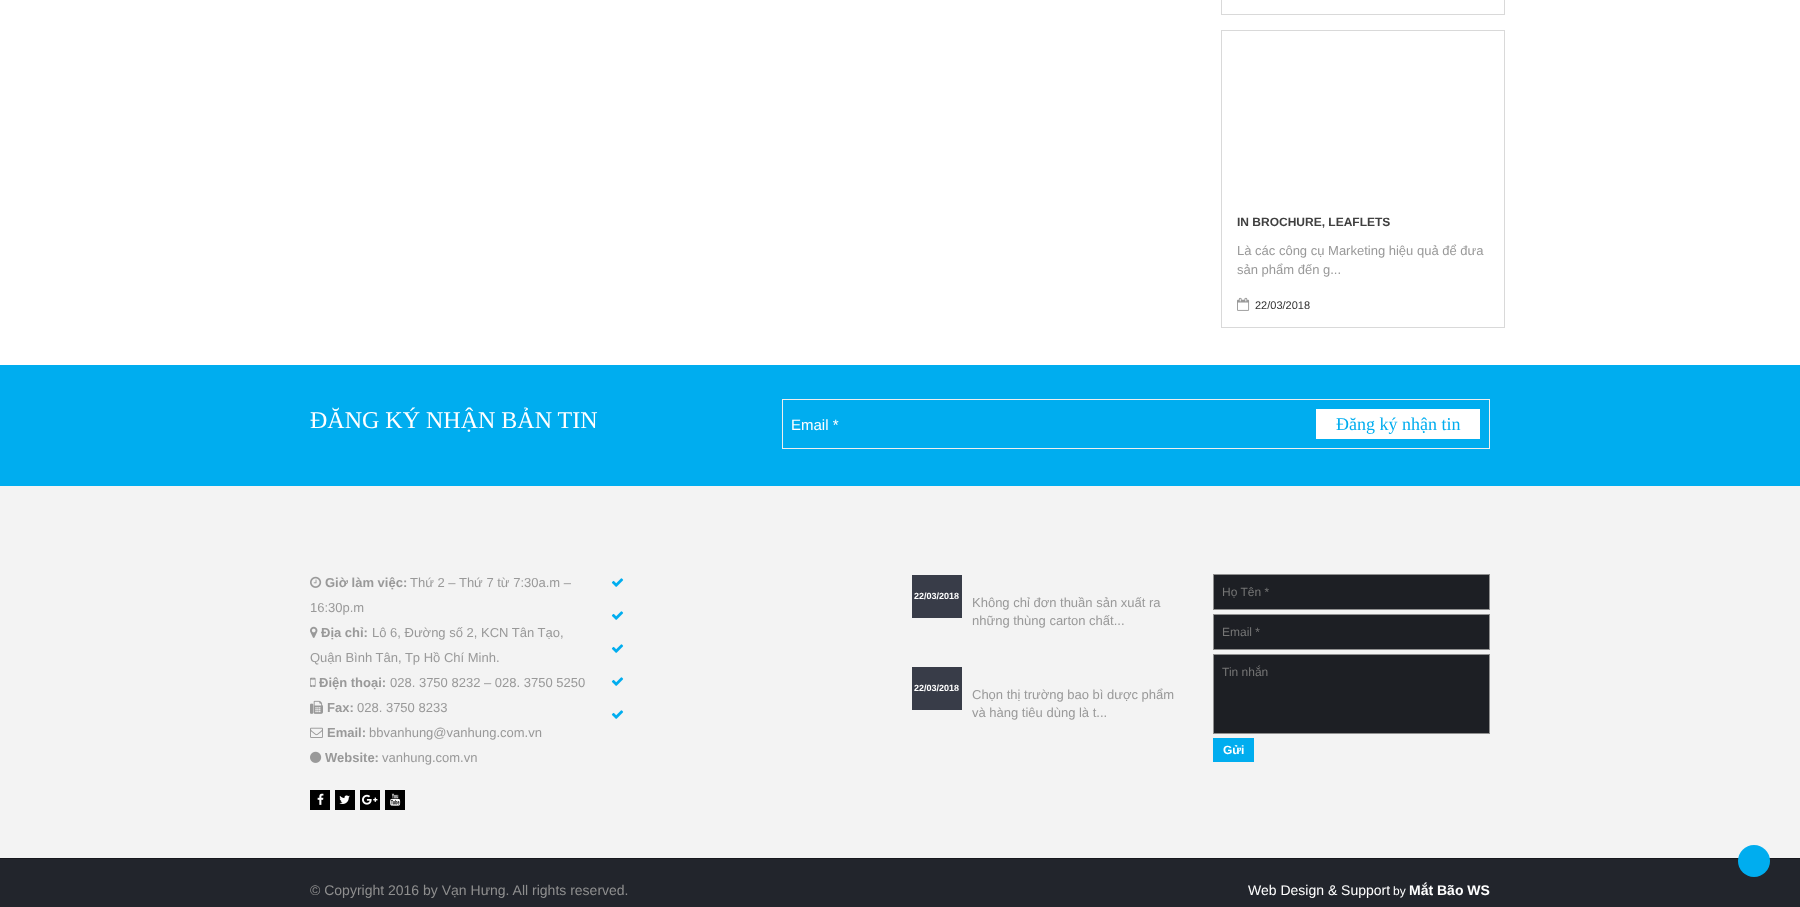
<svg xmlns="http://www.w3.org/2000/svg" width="1800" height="907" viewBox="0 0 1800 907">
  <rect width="100%" height="100%" fill="#ffffff"/>
  <rect x="1221.5" y="-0.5" width="283" height="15" fill="none" stroke="#d9d9d9"/>
  <rect x="1221.5" y="30.5" width="283" height="297" fill="none" stroke="#d9d9d9"/>
  <text x="1237" y="226" font-family="Liberation Sans" font-size="12" font-weight="bold" fill="#404040">IN BROCHURE, LEAFLETS</text>
  <text x="1237" y="255" font-family="Liberation Sans" font-size="13" fill="#999999">Là các công cụ Marketing hiệu quả để đưa</text>
  <text x="1237" y="274" font-family="Liberation Sans" font-size="13" fill="#999999">sản phẩm đến g...</text>
  <image x="1237" y="297" width="13" height="14" href="img1.png"/>
  <text x="1255" y="309" font-family="Liberation Sans" font-size="11" fill="#333333">22/03/2018</text>
  <rect x="0" y="486" width="1800" height="372" fill="#f3f3f3"/>
  <rect x="0" y="859" width="1800" height="48" fill="#22252c"/>
  <rect x="0" y="858" width="1800" height="1" fill="#16181d"/>
  <circle cx="1754" cy="861" r="16" fill="#00adef"/>
  <rect x="0" y="365" width="1800" height="121" fill="#00adef"/>
  <text x="310" y="428" font-family="Liberation Serif" font-size="24" fill="#ffffff">ĐĂNG KÝ NHẬN BẢN TIN</text>
  <rect x="782.5" y="399.5" width="707" height="49" fill="none" stroke="#eeeeee"/>
  <text x="791" y="430" font-family="Liberation Sans" font-size="15" fill="#ffffff">Email *</text>
  <rect x="1316" y="409" width="164" height="30" fill="#ffffff"/>
  <text x="1336" y="430" font-family="Liberation Serif" font-size="18" fill="#00adef">Đăng ký nhận tin</text>
  <image x="310" y="576" width="12" height="12" href="img2.png"/>
  <text x="325" y="587" font-family="Liberation Sans" font-size="13" font-weight="bold" fill="#999999">Giờ làm việc:</text>
  <text x="410" y="587" font-family="Liberation Sans" font-size="13" fill="#999999">Thứ 2 – Thứ 7 từ 7:30a.m –</text>
  <text x="310" y="612" font-family="Liberation Sans" font-size="13" fill="#999999">16:30p.m</text>
  <image x="310" y="626" width="8" height="12" href="img3.png"/>
  <text x="321" y="637" font-family="Liberation Sans" font-size="13" font-weight="bold" fill="#999999">Địa chỉ:</text>
  <text x="372" y="637" font-family="Liberation Sans" font-size="13" fill="#999999">Lô 6, Đường số 2, KCN Tân Tạo,</text>
  <text x="310" y="662" font-family="Liberation Sans" font-size="13" fill="#999999">Quận Bình Tân, Tp Hồ Chí Minh.</text>
  <image x="310" y="677" width="6" height="10" href="img4.png"/>
  <text x="319" y="687" font-family="Liberation Sans" font-size="13" font-weight="bold" fill="#999999">Điện thoại:</text>
  <text x="390" y="687" font-family="Liberation Sans" font-size="13" fill="#999999">028. 3750 8232 – 028. 3750 5250</text>
  <image x="310" y="700" width="13" height="14" href="img5.png"/>
  <text x="327" y="712" font-family="Liberation Sans" font-size="13" font-weight="bold" fill="#999999">Fax:</text>
  <text x="357" y="712" font-family="Liberation Sans" font-size="13" fill="#999999">028. 3750 8233</text>
  <image x="310" y="727" width="13" height="11" href="img6.png"/>
  <text x="327" y="737" font-family="Liberation Sans" font-size="13" font-weight="bold" fill="#999999">Email:</text>
  <text x="369" y="737" font-family="Liberation Sans" font-size="13" fill="#999999">bbvanhung@vanhung.com.vn</text>
  <image x="310" y="751" width="12" height="12" href="img7.png"/>
  <text x="325" y="762" font-family="Liberation Sans" font-size="13" font-weight="bold" fill="#999999">Website:</text>
  <text x="382" y="762" font-family="Liberation Sans" font-size="13" fill="#999999">vanhung.com.vn</text>
  <rect x="310" y="790" width="20" height="20" fill="#000000"/>
  <image x="317" y="793" width="7" height="12" href="img8.png"/>
  <rect x="335" y="790" width="20" height="20" fill="#000000"/>
  <image x="339" y="795" width="11" height="9" href="img9.png"/>
  <rect x="360" y="790" width="20" height="20" fill="#000000"/>
  <image x="362" y="794" width="16" height="11" href="img10.png"/>
  <rect x="385" y="790" width="20" height="20" fill="#000000"/>
  <image x="390" y="793" width="11" height="13" href="img11.png"/>
  <image x="611" y="578" width="13" height="9" href="img12.png"/>
  <image x="611" y="611" width="13" height="9" href="img12.png"/>
  <image x="611" y="644" width="13" height="9" href="img12.png"/>
  <image x="611" y="677" width="13" height="9" href="img12.png"/>
  <image x="611" y="710" width="13" height="9" href="img12.png"/>
  <rect x="912" y="575" width="50" height="43" fill="#383c48"/>
  <text x="914" y="599" font-family="Liberation Sans" font-size="9" font-weight="bold" fill="#ffffff">22/03/2018</text>
  <text x="972" y="607" font-family="Liberation Sans" font-size="13" fill="#999999">Không chỉ đơn thuần sản xuất ra</text>
  <text x="972" y="625" font-family="Liberation Sans" font-size="13" fill="#999999">những thùng carton chất...</text>
  <rect x="912" y="667" width="50" height="43" fill="#383c48"/>
  <text x="914" y="691" font-family="Liberation Sans" font-size="9" font-weight="bold" fill="#ffffff">22/03/2018</text>
  <text x="972" y="699" font-family="Liberation Sans" font-size="13" fill="#999999">Chọn thị trường bao bì dược phẩm</text>
  <text x="972" y="717" font-family="Liberation Sans" font-size="13" fill="#999999">và hàng tiêu dùng là t...</text>
  <rect x="1213.5" y="574.5" width="276" height="35" fill="#1d1f24" stroke="#8f8f8f"/>
  <text x="1222" y="596" font-family="Liberation Sans" font-size="12" fill="#757575">Họ Tên *</text>
  <rect x="1213.5" y="614.5" width="276" height="35" fill="#1d1f24" stroke="#8f8f8f"/>
  <text x="1222" y="636" font-family="Liberation Sans" font-size="12" fill="#757575">Email *</text>
  <rect x="1213.5" y="654.5" width="276" height="79" fill="#1d1f24" stroke="#8f8f8f"/>
  <text x="1222" y="676" font-family="Liberation Sans" font-size="12" fill="#757575">Tin nhắn</text>
  <rect x="1213" y="738" width="41" height="24" fill="#00adef"/>
  <text x="1223" y="754" font-family="Liberation Sans" font-size="12" font-weight="bold" fill="#ffffff">Gửi</text>
  <text x="310" y="895" font-family="Liberation Sans" font-size="14" fill="#8f8f8f">© Copyright 2016 by Vạn Hưng. All rights reserved.</text>
  <text x="1248" y="895" font-family="Liberation Sans" font-size="14" fill="#ffffff">Web Design &amp; Support</text>
  <text x="1393" y="895" font-family="Liberation Sans" font-size="12" fill="#ffffff">by</text>
  <text x="1409" y="895" font-family="Liberation Sans" font-size="14" font-weight="bold" fill="#ffffff">Mắt Bão WS</text>
</svg>
